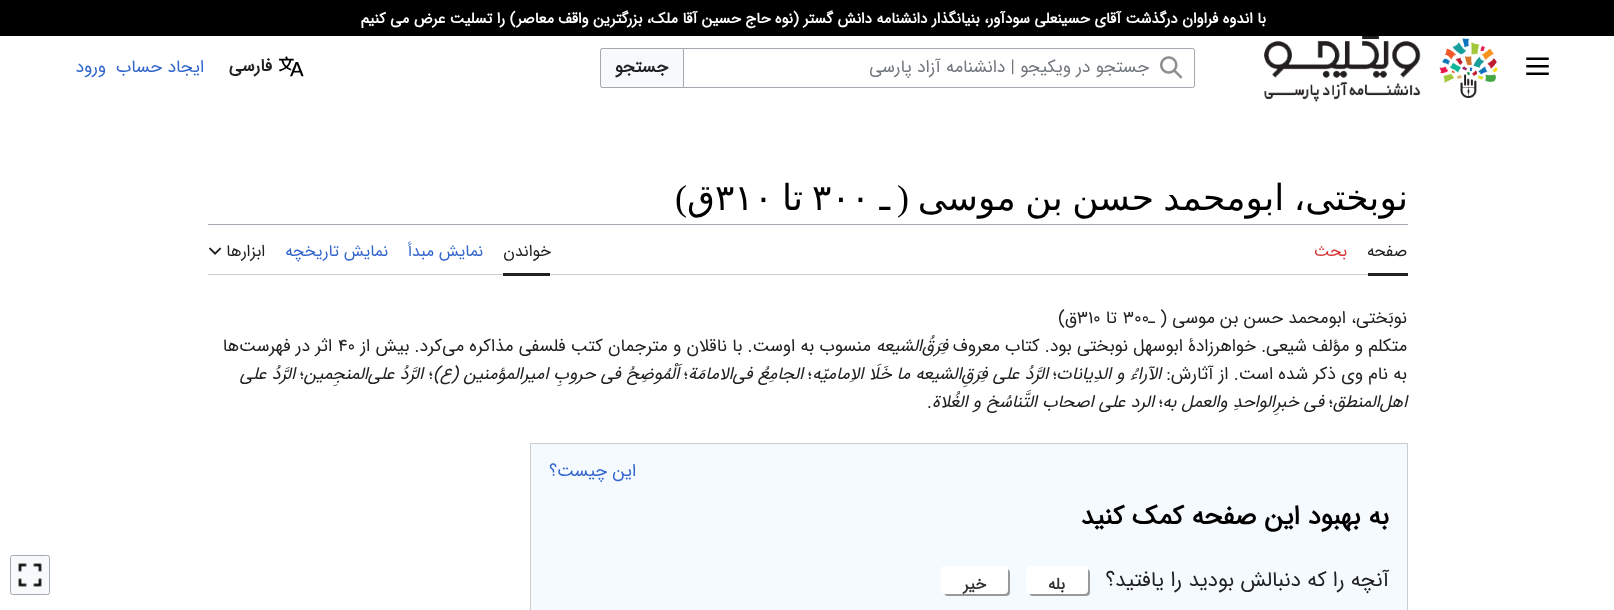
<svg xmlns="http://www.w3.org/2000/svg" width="1614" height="610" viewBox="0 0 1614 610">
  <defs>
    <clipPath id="clip1"><rect x="208" y="174" width="1200" height="50"/></clipPath>
    <filter id="blur1" x="-50%" y="-200%" width="200%" height="500%"><feGaussianBlur stdDeviation="0.5"/></filter>
  </defs>
  <rect width="100%" height="100%" fill="#ffffff"/>
  <rect x="0" y="0" width="1614" height="36" fill="#000000"/>
  <text x="1266" y="23" font-family="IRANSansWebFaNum" font-size="15" font-weight="bold" direction="rtl" fill="#ffffff">با اندوه فراوان درگذشت آقای حسینعلی سودآور، بنیانگذار دانشنامه دانش گستر (نوه حاج حسین آقا ملک، بزرگترین واقف معاصر) را تسلیت عرض می کنیم</text>
  <image x="1526" y="57" width="23" height="18" href="img1.png"/>
  <image x="1439" y="38" width="59" height="60" href="img2.png"/>
  <image x="1264" y="36" width="157" height="66" href="img3.png"/>
  <rect x="600.5" y="48.5" width="594" height="39" rx="2" fill="none" stroke="#a2a9b1"/>
  <path d="M602.5 48.5H683.5V87.5H602.5C601.5 87.5 600.5 86.5 600.5 85.5V50.5C600.5 49.5 601.5 48.5 602.5 48.5Z" fill="#f8f9fa" stroke="#a2a9b1"/>
  <path d="M683.5 48.5H1192.5C1193.5 48.5 1194.5 49.5 1194.5 50.5V85.5C1194.5 86.5 1193.5 87.5 1192.5 87.5H683.5Z" fill="#ffffff" stroke="#a2a9b1"/>
  <image x="1160" y="56" width="23" height="23" href="img4.png"/>
  <text x="1149" y="72" font-family="IRANSansWebFaNum" font-size="17.5" direction="rtl" fill="#72777d">جستجو در ویکیجو | دانشنامه آزاد پارسی</text>
  <text x="668" y="72" font-family="IRANSansWebFaNum" font-size="17.5" font-weight="bold" direction="rtl" fill="#202122">جستجو</text>
  <image x="279" y="56" width="25" height="21" href="img5.png"/>
  <text x="272" y="71" font-family="IRANSansWebFaNum" font-size="17.5" font-weight="bold" direction="rtl" fill="#202122">فارسی</text>
  <text x="204" y="72" font-family="IRANSansWebFaNum" font-size="17.5" direction="rtl" fill="#3366cc">ایجاد حساب</text>
  <text x="106" y="72" font-family="IRANSansWebFaNum" font-size="17.5" direction="rtl" fill="#3366cc">ورود</text>
  <path d="M208 224V225H1408V175V224Z" fill="#a2a9b1"/>
  <g clip-path="url(#clip1)">
    <text x="1408" y="210" word-spacing="-2" font-family="DejaVu Sans" font-size="36" direction="rtl" fill="#000000">نوبختی، ابومحمد حسن بن موسی</text>
  </g>
  <text x="909" y="210" font-family="Liberation Serif" font-size="36" direction="rtl" fill="#000000">(</text>
  <text x="890" y="210" font-family="DejaVu Sans" font-size="36" direction="rtl" fill="#000000">ـ</text>
  <text x="812" y="210" font-family="DejaVu Sans" font-size="36" fill="#000000">۳۰۰</text>
  <text x="803" y="210" font-family="DejaVu Sans" font-size="36" direction="rtl" fill="#000000">تا</text>
  <text x="715" y="210" font-family="DejaVu Sans" font-size="36" fill="#000000">۳۱۰</text>
  <text x="715" y="210" font-family="DejaVu Sans" font-size="36" direction="rtl" fill="#000000">ق</text>
  <text x="687" y="210" font-family="Liberation Serif" font-size="36" direction="rtl" fill="#000000">)</text>
  <path d="M208 274V275H1408V225V274Z" fill="#c8ccd1"/>
  <rect x="1368" y="273" width="40" height="3" fill="#202122"/>
  <text x="1407" y="256" font-family="IRANSansWebFaNum" font-size="16.25" direction="rtl" fill="#202122">صفحه</text>
  <text x="1347" y="256" font-family="IRANSansWebFaNum" font-size="16.25" direction="rtl" fill="#d73333">بحث</text>
  <rect x="503" y="273" width="47" height="3" fill="#202122"/>
  <text x="551" y="256" font-family="IRANSansWebFaNum" font-size="16.25" direction="rtl" fill="#202122">خواندن</text>
  <text x="483" y="256" font-family="IRANSansWebFaNum" font-size="16.25" direction="rtl" fill="#3366cc">نمایش مبدأ</text>
  <text x="388" y="256" font-family="IRANSansWebFaNum" font-size="16.25" direction="rtl" fill="#3366cc">نمایش تاریخچه</text>
  <text x="265" y="256" font-family="IRANSansWebFaNum" font-size="16.25" direction="rtl" fill="#202122">ابزارها</text>
  <image x="208" y="247" width="14" height="8" href="img6.png"/>
  <text x="1407" y="323" font-family="IRANSansWebFaNum" font-size="17.5" direction="rtl" fill="#202122">نوبَختی، ابومحمد حسن بن موسی (</text>
  <text x="1155" y="323" font-family="IRANSansWebFaNum" font-size="17.5" direction="rtl" fill="#202122">ـ</text>
  <text x="1123" y="323" font-family="IRANSansWebFaNum" font-size="17.5" fill="#202122">‌۳۰۰</text>
  <text x="1117" y="323" font-family="IRANSansWebFaNum" font-size="17.5" direction="rtl" fill="#202122">تا</text>
  <text x="1077" y="323" font-family="IRANSansWebFaNum" font-size="17.5" fill="#202122">۳۱۰</text>
  <text x="1077" y="323" font-family="IRANSansWebFaNum" font-size="17.5" direction="rtl" fill="#202122">ق)</text>
  <text x="1407" y="351" font-family="IRANSansWebFaNum" font-size="17.5" direction="rtl" fill="#202122">متکلم و مؤلف شیعی. خواهرزادۀ ابوسهل نوبختی بود. کتاب معروف</text>
  <text x="948" y="351" font-family="IRANSansWebFaNum" font-size="17.5" font-style="italic" direction="rtl" fill="#202122">فِرَقُ‌الشیعه</text>
  <text x="871" y="351" font-family="IRANSansWebFaNum" font-size="17.5" direction="rtl" fill="#202122">منسوب به اوست. با ناقلان و مترجمان کتب فلسفی مذاکره می‌کرد. بیش از</text>
  <text x="338" y="351" font-family="IRANSansWebFaNum" font-size="17.5" fill="#202122">۴۰</text>
  <text x="332" y="351" font-family="IRANSansWebFaNum" font-size="17.5" direction="rtl" fill="#202122">اثر در فهرست‌ها</text>
  <text x="1407" y="379" font-family="IRANSansWebFaNum" font-size="17.5" direction="rtl" fill="#202122">به نام وی ذکر شده است. از آثارش:</text>
  <text x="1161" y="379" font-family="IRANSansWebFaNum" font-size="17.5" font-style="italic" direction="rtl" fill="#202122">الآراءُ و الدِیانات</text>
  <text x="1057" y="379" font-family="IRANSansWebFaNum" font-size="17.5" direction="rtl" fill="#202122">؛</text>
  <text x="1048" y="379" font-family="IRANSansWebFaNum" font-size="17.5" font-style="italic" direction="rtl" fill="#202122">الرَّدُ علی فِرَقِ‌الشیعه ما خَلَا الاِمامیّه</text>
  <text x="812" y="379" font-family="IRANSansWebFaNum" font-size="17.5" direction="rtl" fill="#202122">؛</text>
  <text x="803" y="379" font-family="IRANSansWebFaNum" font-size="17.5" font-style="italic" direction="rtl" fill="#202122">الجامِعُ فی‌الامامَة</text>
  <text x="688" y="379" font-family="IRANSansWebFaNum" font-size="17.5" direction="rtl" fill="#202122">؛</text>
  <text x="679" y="379" font-family="IRANSansWebFaNum" font-size="17.5" font-style="italic" direction="rtl" fill="#202122">اَلْمُوضِحُ فی حروبِ امیرالمؤمنین (ع)</text>
  <text x="433" y="379" font-family="IRANSansWebFaNum" font-size="17.5" direction="rtl" fill="#202122">؛</text>
  <text x="423" y="379" font-family="IRANSansWebFaNum" font-size="17.5" font-style="italic" direction="rtl" fill="#202122">الرَّدُ علی‌المنجِمین</text>
  <text x="304" y="379" font-family="IRANSansWebFaNum" font-size="17.5" direction="rtl" fill="#202122">؛</text>
  <text x="295" y="379" font-family="IRANSansWebFaNum" font-size="17.5" font-style="italic" direction="rtl" fill="#202122">الرَّدُ علی</text>
  <text x="1407" y="407" font-family="IRANSansWebFaNum" font-size="17.5" font-style="italic" direction="rtl" fill="#202122">اهل‌المنطق</text>
  <text x="1333" y="407" font-family="IRANSansWebFaNum" font-size="17.5" direction="rtl" fill="#202122">؛</text>
  <text x="1324" y="407" font-family="IRANSansWebFaNum" font-size="17.5" font-style="italic" direction="rtl" fill="#202122">فی خبرِالواحدِ والعمل به</text>
  <text x="1163" y="407" font-family="IRANSansWebFaNum" font-size="17.5" direction="rtl" fill="#202122">؛</text>
  <text x="1154" y="407" font-family="IRANSansWebFaNum" font-size="17.5" font-style="italic" direction="rtl" fill="#202122">الرد علی اصحاب التَّناسُخ و الغُلاة</text>
  <text x="927" y="407" font-family="IRANSansWebFaNum" font-size="17.5" fill="#202122">.</text>
  <rect x="530.5" y="443.5" width="877" height="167" fill="#f5faff" stroke="#cccccc"/>
  <text x="636" y="476" font-family="IRANSansWebFaNum" font-size="17.5" direction="rtl" fill="#3366cc">این چیست؟</text>
  <text x="1389" y="524" font-family="IRANSansWebFaNum" font-size="26.25" font-weight="bold" direction="rtl" fill="#000000">به بهبود این صفحه کمک کنید</text>
  <text x="1389" y="586" font-family="IRANSansWebFaNum" font-size="21" direction="rtl" fill="#202122">آنچه را که دنبالش بودید را یافتید؟</text>
  <rect x="1029" y="569" width="61" height="27" rx="4" fill="#999999" filter="url(#blur1)"/>
  <rect x="1026" y="566" width="62" height="28" rx="4" fill="#ffffff"/>
  <text x="1065" y="589" font-family="IRANSansWebFaNum" font-size="16" font-weight="bold" direction="rtl" fill="#333333">بله</text>
  <rect x="944" y="569" width="66" height="27" rx="4" fill="#999999" filter="url(#blur1)"/>
  <rect x="941" y="566" width="67" height="28" rx="4" fill="#ffffff"/>
  <text x="986" y="589" font-family="IRANSansWebFaNum" font-size="16" font-weight="bold" direction="rtl" fill="#333333">خیر</text>
  <rect x="10.5" y="555.5" width="39" height="39" rx="2" fill="#f8f9fa" stroke="#a2a9b1"/>
  <image x="18" y="563" width="24" height="24" href="img7.png"/>
</svg>
